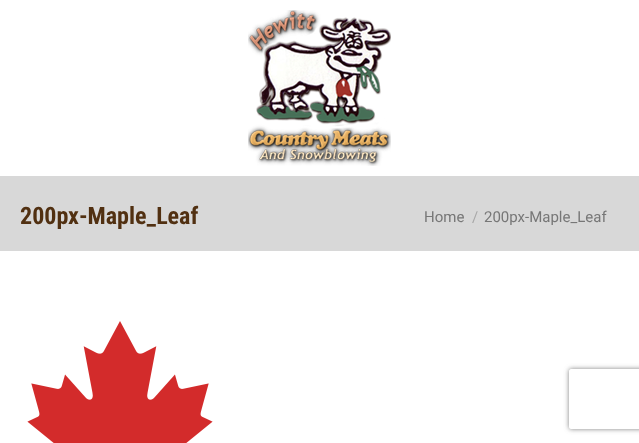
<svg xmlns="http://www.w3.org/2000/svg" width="639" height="443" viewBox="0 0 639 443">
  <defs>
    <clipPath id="clip1"><path d="M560 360H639V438H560ZM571 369H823C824 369 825 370 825 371V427C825 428 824 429 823 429H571C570 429 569 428 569 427V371C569 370 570 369 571 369Z" clip-rule="evenodd"/></clipPath>
    <filter id="blur1" x="-50%" y="-200%" width="200%" height="500%"><feGaussianBlur stdDeviation="2.5"/></filter>
  </defs>
  <rect width="100%" height="100%" fill="#ffffff"/>
  <image x="248" y="10" width="143" height="156" href="img1.png"/>
  <rect x="0" y="176" width="639" height="75" fill="#d8d8d8"/>
  <text x="20" y="224" font-family="Roboto Condensed" font-size="24" font-weight="bold" fill="#513011">200px-Maple_Leaf</text>
  <text x="424" y="222" font-family="Roboto" font-size="15" fill="#777777">Home</text>
  <text x="472" y="222" font-family="Roboto" font-size="15" fill="#a8a8a8">/</text>
  <text x="484" y="222" font-family="Roboto" font-size="15" fill="#777777">200px-Maple_Leaf</text>
  <image x="27" y="321" width="186" height="122" href="img2.png"/>
  <g clip-path="url(#clip1)">
    <rect x="569" y="369" width="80" height="60" rx="2" fill="#808080" filter="url(#blur1)"/>
  </g>
</svg>
